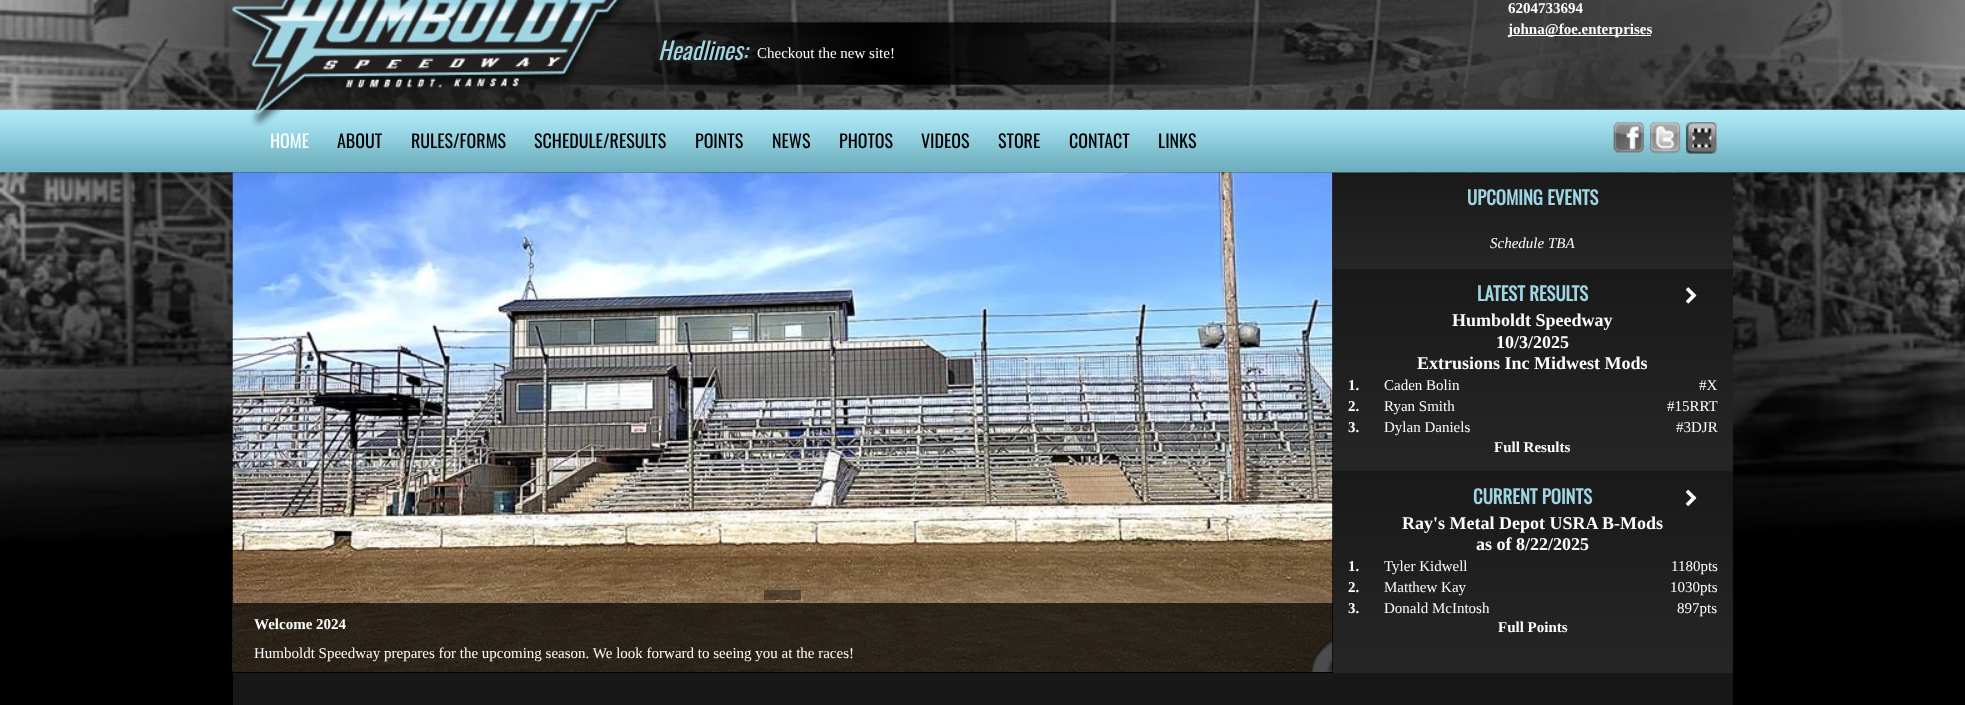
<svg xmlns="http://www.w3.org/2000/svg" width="1965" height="705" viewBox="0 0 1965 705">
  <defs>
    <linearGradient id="g1" gradientUnits="userSpaceOnUse" x1="1533" y1="172" x2="1533" y2="269"><stop offset="0" stop-color="#191919"/><stop offset="1" stop-color="#262626"/></linearGradient>
    <linearGradient id="g2" gradientUnits="userSpaceOnUse" x1="1533" y1="269" x2="1533" y2="471"><stop offset="0" stop-color="#191919"/><stop offset="1" stop-color="#262626"/></linearGradient>
    <linearGradient id="g3" gradientUnits="userSpaceOnUse" x1="1533" y1="471" x2="1533" y2="673"><stop offset="0" stop-color="#191919"/><stop offset="1" stop-color="#262626"/></linearGradient>
  </defs>
  <rect width="100%" height="100%" fill="#000000"/>
  <image x="0" y="0" width="1965" height="539" href="img1.png"/>
  <text x="1508" y="13" font-family="Liberation Serif" font-size="15" font-weight="bold" fill="#fdfdfd">6204733694</text>
  <rect x="1508" y="35" width="143" height="1" fill="#fdfdfd"/>
  <text x="1508" y="34" font-family="Liberation Serif" font-size="15" font-weight="bold" fill="#fdfdfd">johna@foe.enterprises</text>
  <text x="658" y="60" font-family="Oswald" font-size="24" font-style="italic" fill="#9fd5e2">Headlines:</text>
  <text x="757" y="58" font-family="Liberation Serif" font-size="15" fill="#fdfdfd">Checkout the new site!</text>
  <image x="1613" y="122" width="31" height="31" href="img2.png"/>
  <image x="1650" y="122" width="31" height="32" href="img3.png"/>
  <image x="1686" y="122" width="31" height="32" href="img4.png"/>
  <text x="270" y="148" font-family="Oswald" font-size="18" fill="#fdfdfd">HOME</text>
  <text x="337" y="148" font-family="Oswald" font-size="18" fill="#000000">ABOUT</text>
  <text x="411" y="148" font-family="Oswald" font-size="18" fill="#000000">RULES/FORMS</text>
  <text x="534" y="148" font-family="Oswald" font-size="18" fill="#000000">SCHEDULE/RESULTS</text>
  <text x="695" y="148" font-family="Oswald" font-size="18" fill="#000000">POINTS</text>
  <text x="772" y="148" font-family="Oswald" font-size="18" fill="#000000">NEWS</text>
  <text x="839" y="148" font-family="Oswald" font-size="18" fill="#000000">PHOTOS</text>
  <text x="921" y="148" font-family="Oswald" font-size="18" fill="#000000">VIDEOS</text>
  <text x="998" y="148" font-family="Oswald" font-size="18" fill="#000000">STORE</text>
  <text x="1069" y="148" font-family="Oswald" font-size="18" fill="#000000">CONTACT</text>
  <text x="1158" y="148" font-family="Oswald" font-size="18" fill="#000000">LINKS</text>
  <image x="1613" y="122" width="31" height="31" href="img5.png"/>
  <image x="1650" y="122" width="31" height="32" href="img6.png"/>
  <image x="1686" y="122" width="31" height="32" href="img7.png"/>
  <rect x="1333" y="173" width="400" height="96" fill="url(#g1)"/>
  <text x="1467" y="205" font-family="Oswald" font-size="18.75" font-weight="bold" fill="#9fd5e2">UPCOMING EVENTS</text>
  <text x="1490" y="248" font-family="Liberation Serif" font-size="15" font-style="italic" fill="#fdfdfd">Schedule TBA</text>
  <rect x="1333" y="269" width="400" height="202" fill="url(#g2)"/>
  <text x="1477" y="301" font-family="Oswald" font-size="18.75" font-weight="bold" fill="#9fd5e2">LATEST RESULTS</text>
  <image x="1685" y="287" width="12" height="17" href="img8.png"/>
  <text x="1452" y="326" font-family="Liberation Serif" font-size="18" font-weight="bold" fill="#fdfdfd">Humboldt Speedway</text>
  <text x="1496" y="348" font-family="Liberation Serif" font-size="18" font-weight="bold" fill="#fdfdfd">10/3/2025</text>
  <text x="1417" y="369" font-family="Liberation Serif" font-size="18" font-weight="bold" fill="#fdfdfd">Extrusions Inc Midwest Mods</text>
  <text x="1348" y="390" font-family="Liberation Serif" font-size="15" font-weight="bold" fill="#fdfdfd">1.</text>
  <text x="1384" y="390" font-family="Liberation Serif" font-size="15" fill="#fdfdfd">Caden Bolin</text>
  <text x="1699" y="390" font-family="Liberation Serif" font-size="15" fill="#fdfdfd">#X</text>
  <text x="1348" y="411" font-family="Liberation Serif" font-size="15" font-weight="bold" fill="#fdfdfd">2.</text>
  <text x="1384" y="411" font-family="Liberation Serif" font-size="15" fill="#fdfdfd">Ryan Smith</text>
  <text x="1667" y="411" font-family="Liberation Serif" font-size="15" fill="#fdfdfd">#15RRT</text>
  <text x="1348" y="432" font-family="Liberation Serif" font-size="15" font-weight="bold" fill="#fdfdfd">3.</text>
  <text x="1384" y="432" font-family="Liberation Serif" font-size="15" fill="#fdfdfd">Dylan Daniels</text>
  <text x="1676" y="432" font-family="Liberation Serif" font-size="15" fill="#fdfdfd">#3DJR</text>
  <text x="1494" y="452" font-family="Liberation Serif" font-size="15" font-weight="bold" fill="#fdfdfd">Full Results</text>
  <rect x="1333" y="471" width="400" height="202" fill="url(#g3)"/>
  <text x="1473" y="504" font-family="Oswald" font-size="18.75" font-weight="bold" fill="#9fd5e2">CURRENT POINTS</text>
  <image x="1685" y="489" width="12" height="17" href="img9.png"/>
  <text x="1402" y="529" font-family="Liberation Serif" font-size="18" font-weight="bold" fill="#fdfdfd">Ray's Metal Depot USRA B-Mods</text>
  <text x="1476" y="550" font-family="Liberation Serif" font-size="18" font-weight="bold" fill="#fdfdfd">as of 8/22/2025</text>
  <text x="1348" y="571" font-family="Liberation Serif" font-size="15" font-weight="bold" fill="#fdfdfd">1.</text>
  <text x="1384" y="571" font-family="Liberation Serif" font-size="15" fill="#fdfdfd">Tyler Kidwell</text>
  <text x="1671" y="571" font-family="Liberation Serif" font-size="15" fill="#fdfdfd">1180pts</text>
  <text x="1348" y="592" font-family="Liberation Serif" font-size="15" font-weight="bold" fill="#fdfdfd">2.</text>
  <text x="1384" y="592" font-family="Liberation Serif" font-size="15" fill="#fdfdfd">Matthew Kay</text>
  <text x="1670" y="592" font-family="Liberation Serif" font-size="15" fill="#fdfdfd">1030pts</text>
  <text x="1348" y="613" font-family="Liberation Serif" font-size="15" font-weight="bold" fill="#fdfdfd">3.</text>
  <text x="1384" y="613" font-family="Liberation Serif" font-size="15" fill="#fdfdfd">Donald McIntosh</text>
  <text x="1677" y="613" font-family="Liberation Serif" font-size="15" fill="#fdfdfd">897pts</text>
  <text x="1498" y="632" font-family="Liberation Serif" font-size="15" font-weight="bold" fill="#fdfdfd">Full Points</text>
  <rect x="233" y="173" width="1100" height="366" fill="#000000"/>
  <image x="232" y="172" width="1101" height="501" href="img10.png"/>
  <rect x="764" y="590" width="37" height="10" fill="#000000" fill-opacity="0.4"/>
  <rect x="233" y="603" width="1100" height="70" fill="#000000" fill-opacity="0.7"/>
  <text x="254" y="629" font-family="Liberation Serif" font-size="15" font-weight="bold" fill="#fdfdfd">Welcome 2024</text>
  <text x="254" y="658" font-family="Liberation Serif" font-size="15" fill="#fdfdfd">Humboldt Speedway prepares for the upcoming season. We look forward to seeing you at the races!</text>
  <rect x="233" y="673" width="1500" height="32" fill="#181818"/>
</svg>
